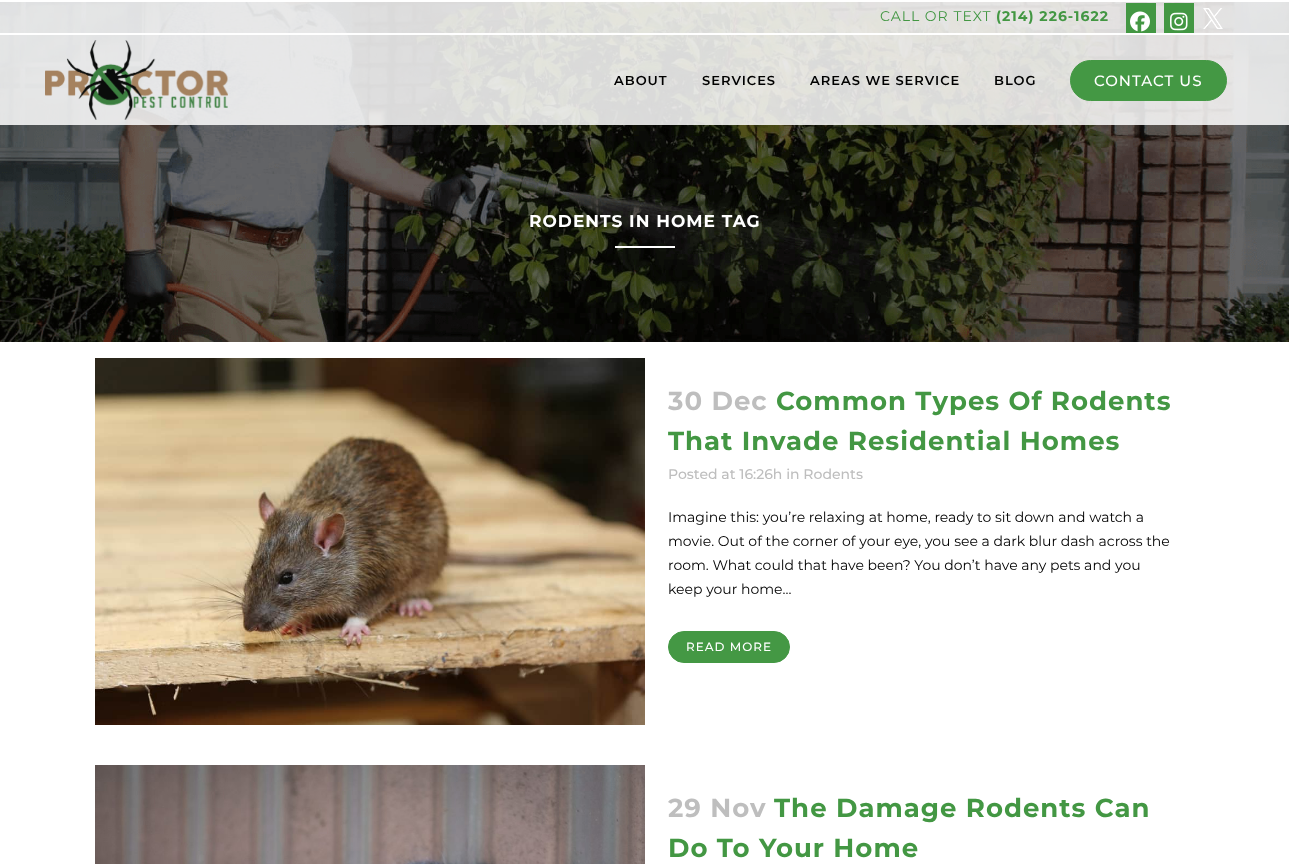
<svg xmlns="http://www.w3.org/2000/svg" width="1289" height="864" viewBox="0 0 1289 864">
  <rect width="100%" height="100%" fill="#ffffff"/>
  <image x="0" y="2" width="1289" height="340" href="img5.png"/>
  <rect x="0" y="2" width="1289" height="31" fill="#ffffff" fill-opacity="0.85"/>
  <rect x="0" y="33" width="1289" height="2" fill="#ffffff"/>
  <text x="880" y="21" font-family="Montserrat" font-size="14" letter-spacing="1" fill="#439743">CALL OR TEXT</text>
  <text x="996" y="21" font-family="Montserrat" font-size="14" font-weight="bold" letter-spacing="1" fill="#439743">(214) 226-1622</text>
  <rect x="1126" y="3" width="30" height="30" fill="#439743"/>
  <image x="1130" y="11" width="20" height="21" href="img1.png"/>
  <rect x="1164" y="3" width="30" height="30" fill="#439743"/>
  <image x="1170" y="12" width="18" height="19" href="img2.png"/>
  <image x="1203" y="8" width="20" height="21" href="img3.png"/>
  <rect x="0" y="35" width="1289" height="90" fill="#ffffff" fill-opacity="0.85"/>
  <image x="45" y="40" width="183" height="80" href="img4.png"/>
  <text x="614" y="85" font-family="Montserrat" font-size="13" font-weight="600" letter-spacing="1" fill="#000000">ABOUT</text>
  <text x="702" y="85" font-family="Montserrat" font-size="13" font-weight="600" letter-spacing="1" fill="#000000">SERVICES</text>
  <text x="810" y="85" font-family="Montserrat" font-size="13" font-weight="600" letter-spacing="1" fill="#000000">AREAS WE SERVICE</text>
  <text x="994" y="85" font-family="Montserrat" font-size="13" font-weight="600" letter-spacing="1" fill="#000000">BLOG</text>
  <rect x="1070.5" y="60.5" width="156" height="40" rx="20" fill="#449844" stroke="#449844"/>
  <text x="1094" y="86" font-family="Montserrat" font-size="15" font-weight="500" letter-spacing="1" fill="#ffffff">CONTACT US</text>
  <text x="529" y="227" font-family="Montserrat" font-size="17" font-weight="bold" letter-spacing="1" fill="#ffffff">RODENTS IN HOME TAG</text>
  <rect x="615" y="246" width="60" height="2" fill="#ffffff"/>
  <image x="95" y="358" width="550" height="367" href="img6.png"/>
  <text x="668" y="410" font-family="Montserrat" font-size="26" font-weight="bold" letter-spacing="1" fill="#bebebe">30 Dec</text>
  <text x="776" y="410" font-family="Montserrat" font-size="26" font-weight="bold" letter-spacing="1" fill="#439743">Common Types Of Rodents</text>
  <text x="668" y="450" font-family="Montserrat" font-size="26" font-weight="bold" letter-spacing="1" fill="#439743">That Invade Residential Homes</text>
  <text x="668" y="479" font-family="Montserrat" font-size="14" font-weight="500" fill="#bebebe">Posted at 16:26h in Rodents</text>
  <text x="668" y="522" font-family="Montserrat" font-size="14" fill="#000000">Imagine this: you’re relaxing at home, ready to sit down and watch a</text>
  <text x="668" y="546" font-family="Montserrat" font-size="14" fill="#000000">movie. Out of the corner of your eye, you see a dark blur dash across the</text>
  <text x="668" y="570" font-family="Montserrat" font-size="14" fill="#000000">room. What could that have been? You don’t have any pets and you</text>
  <text x="668" y="594" font-family="Montserrat" font-size="14" fill="#000000">keep your home...</text>
  <rect x="668.5" y="631.5" width="121" height="31" rx="15.5" fill="#449844" stroke="#449844"/>
  <text x="686" y="651" font-family="Montserrat" font-size="12" font-weight="500" letter-spacing="1" fill="#ffffff">READ MORE</text>
  <image x="95" y="765" width="550" height="99" href="img7.png"/>
  <text x="668" y="817" font-family="Montserrat" font-size="26" font-weight="bold" letter-spacing="1" fill="#bebebe">29 Nov</text>
  <text x="774" y="817" font-family="Montserrat" font-size="26" font-weight="bold" letter-spacing="1" fill="#439743">The Damage Rodents Can</text>
  <text x="668" y="857" font-family="Montserrat" font-size="26" font-weight="bold" letter-spacing="1" fill="#439743">Do To Your Home</text>
</svg>
